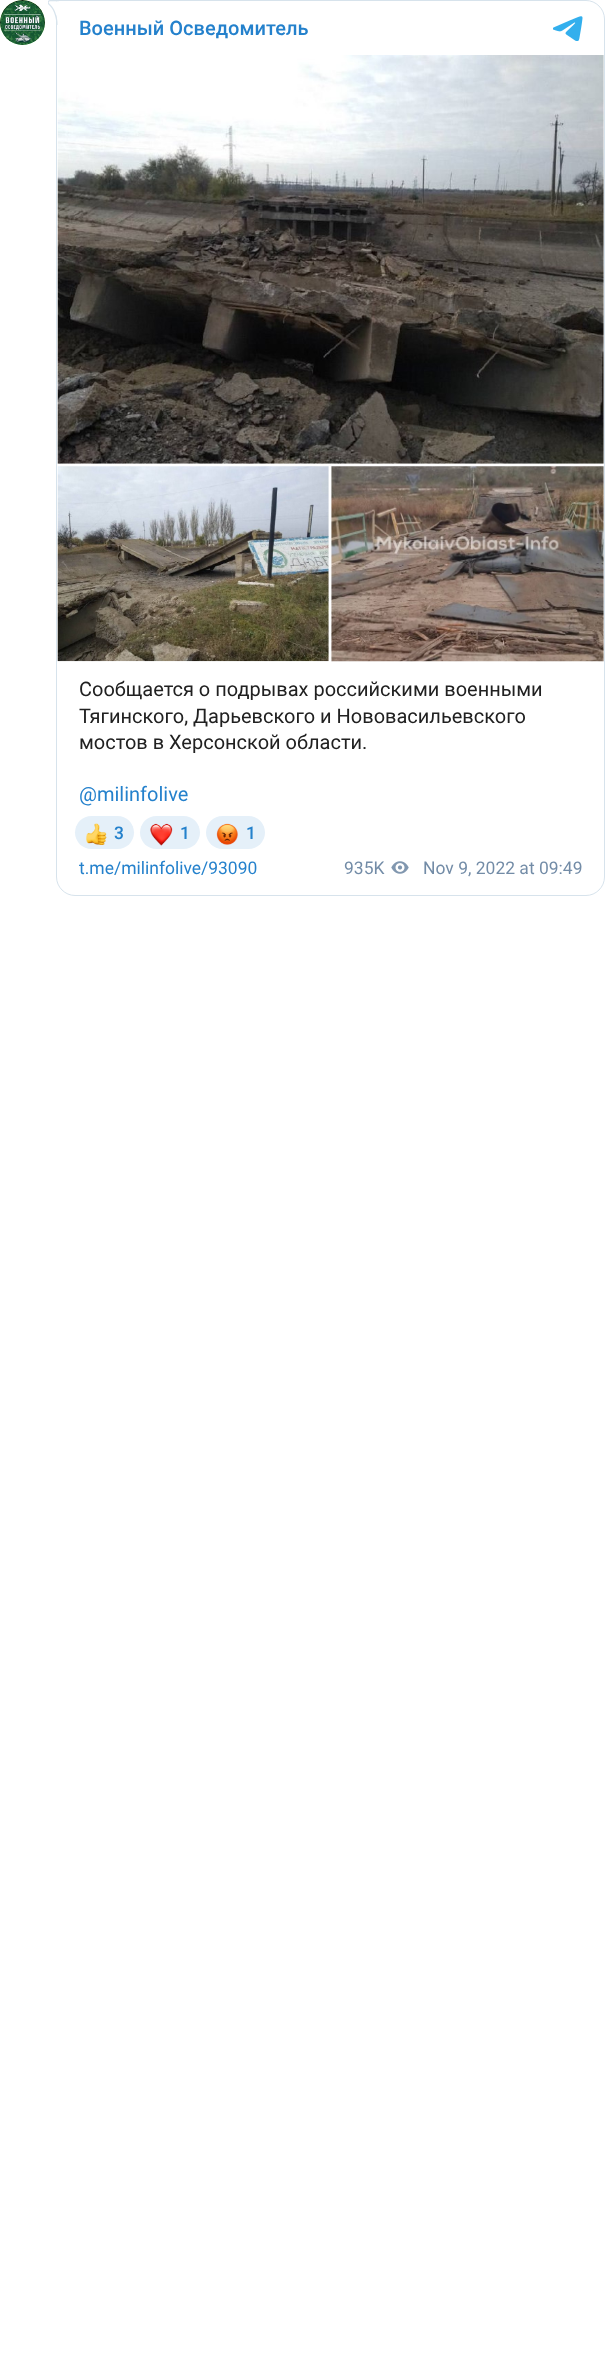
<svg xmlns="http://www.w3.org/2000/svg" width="605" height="2366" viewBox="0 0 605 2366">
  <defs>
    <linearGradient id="g1" gradientUnits="userSpaceOnUse" x1="22" y1="0" x2="23" y2="45"><stop offset="0" stop-color="#a0de7e"/><stop offset="1" stop-color="#54cb68"/></linearGradient>
  </defs>
  <rect width="100%" height="100%" fill="#ffffff"/>
  <circle cx="22.5" cy="22.5" r="22.5" fill="url(#g1)"/>
  <image x="0" y="0" width="45" height="45" href="img1.png"/>
  <path d="M56.5 .5H586C596 .5 604.5 9 604.5 19V877C604.5 887 596 895.5 586 895.5H75C65 895.5 56.5 887 56.5 877Z" fill="none" stroke="#d7e3ec"/>
  <image x="48" y="0" width="11" height="25" href="img2.png"/>
  <text x="79" y="35" font-family="Roboto" font-size="20" font-weight="500" fill="#2481cc">Военный Осведомитель</text>
  <image x="553" y="16" width="30" height="25" href="img3.png"/>
  <image x="57" y="55" width="547" height="409" href="img4.png"/>
  <image x="57" y="466" width="272" height="196" href="img5.png"/>
  <image x="331" y="466" width="273" height="196" href="img6.png"/>
  <text x="79" y="696" font-family="Roboto" font-size="20" fill="#212121">Сообщается о подрывах российскими военными</text>
  <text x="79" y="723" font-family="Roboto" font-size="20" fill="#212121">Тягинского, Дарьевского и Нововасильевского</text>
  <text x="79" y="749" font-family="Roboto" font-size="20" fill="#212121">мостов в Херсонской области.</text>
  <text x="79" y="801" font-family="Roboto" font-size="20" fill="#2481cc">@milinfolive</text>
  <rect x="75" y="816" width="59" height="33" rx="16.5" fill="#e5f0f9"/>
  <image x="86" y="823" width="21" height="22" href="img7.png"/>
  <text x="114" y="839" font-family="Roboto" font-size="17.5" font-weight="500" fill="#2481cc">3</text>
  <rect x="140" y="816" width="60" height="33" rx="16.5" fill="#e5f0f9"/>
  <image x="150" y="823" width="23" height="23" href="img8.png"/>
  <text x="180" y="839" font-family="Roboto" font-size="17.5" font-weight="500" fill="#2481cc">1</text>
  <rect x="206" y="816" width="59" height="33" rx="16.5" fill="#e5f0f9"/>
  <image x="216" y="823" width="22" height="22" href="img9.png"/>
  <text x="246" y="839" font-family="Roboto" font-size="17.5" font-weight="500" fill="#2481cc">1</text>
  <text x="79" y="874" font-family="Roboto" font-size="17.5" fill="#2481cc">t.me/milinfolive</text>
  <text x="201" y="874" font-family="Roboto" font-size="17.5" fill="#2481cc">/93090</text>
  <text x="344" y="874" font-family="Roboto" font-size="17.5" fill="#738ca7">935K</text>
  <image x="391" y="861" width="18" height="13" href="img10.png"/>
  <text x="423" y="874" font-family="Roboto" font-size="17.5" fill="#738ca7">Nov 9, 2022 at 09:49</text>
</svg>
